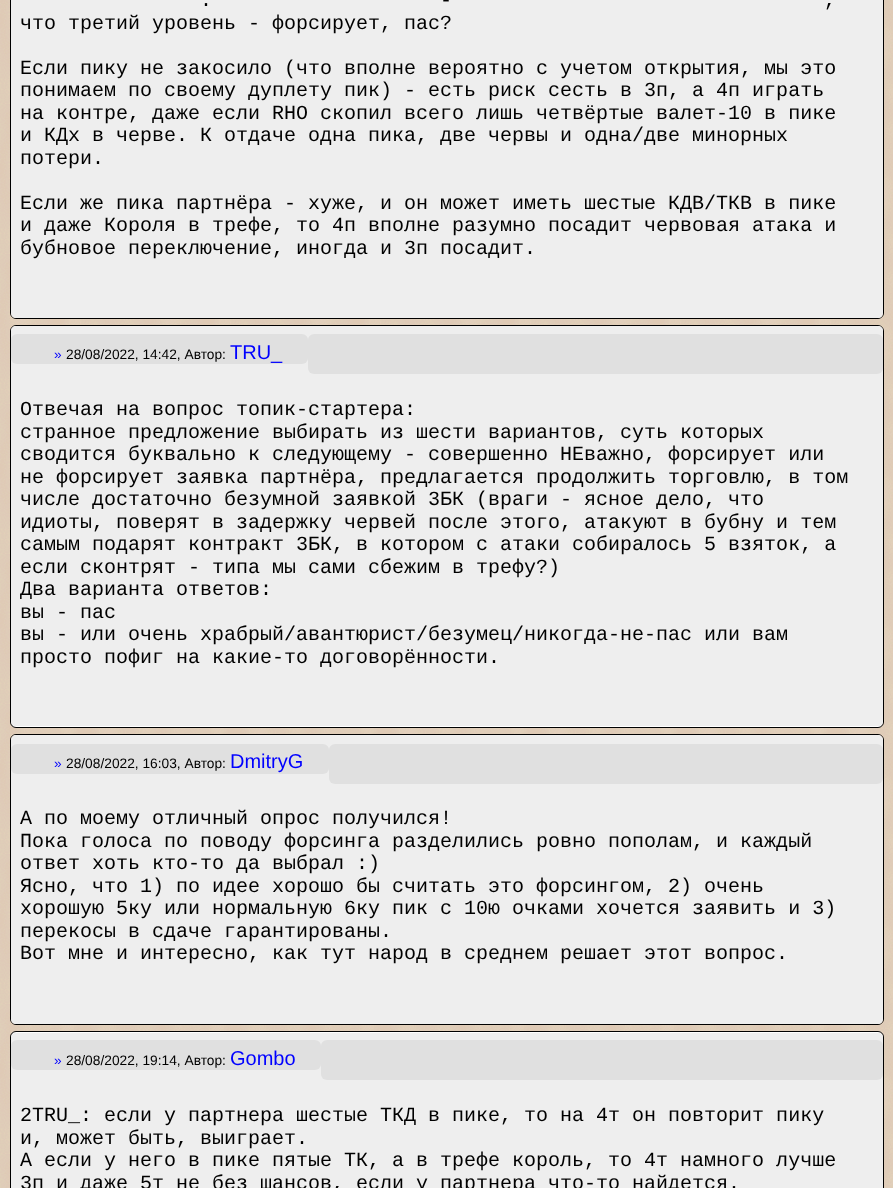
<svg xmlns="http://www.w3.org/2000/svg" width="893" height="1188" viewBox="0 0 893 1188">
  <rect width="100%" height="100%" fill="#ffffff"/>
  <image x="0" y="0" width="893" height="1188" href="img1.png"/>
  <rect x="10.5" y="-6.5" width="873" height="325" rx="5.5" fill="none" stroke="#000000"/>
  <rect x="11" y="0" width="872" height="276" fill="#eeeeee"/>
  <text x="440" y="6" font-family="Liberation Mono" font-size="20" fill="#000000">-</text>
  <text x="200" y="6" font-family="Liberation Mono" font-size="20" fill="#000000">.</text>
  <text x="824" y="6" font-family="Liberation Mono" font-size="20" fill="#000000">,</text>
  <text x="20" y="29" font-family="Liberation Mono" font-size="20" fill="#000000">что третий уровень - форсирует, пас?</text>
  <text x="20" y="74" font-family="Liberation Mono" font-size="20" fill="#000000">Если пику не закосило (что вполне вероятно с учетом открытия, мы это</text>
  <text x="20" y="96" font-family="Liberation Mono" font-size="20" fill="#000000">понимаем по своему дуплету пик) - есть риск сесть в 3п, а 4п играть</text>
  <text x="20" y="119" font-family="Liberation Mono" font-size="20" fill="#000000">на контре, даже если RHO скопил всего лишь четвёртые валет-10 в пике</text>
  <text x="20" y="141" font-family="Liberation Mono" font-size="20" fill="#000000">и КДх в черве. К отдаче одна пика, две червы и одна/две минорных</text>
  <text x="20" y="164" font-family="Liberation Mono" font-size="20" fill="#000000">потери.</text>
  <text x="20" y="209" font-family="Liberation Mono" font-size="20" fill="#000000">Если же пика партнёра - хуже, и он может иметь шестые КДВ/ТКВ в пике</text>
  <text x="20" y="231" font-family="Liberation Mono" font-size="20" fill="#000000">и даже Короля в трефе, то 4п вполне разумно посадит червовая атака и</text>
  <text x="20" y="254" font-family="Liberation Mono" font-size="20" fill="#000000">бубновое переключение, иногда и 3п посадит.</text>
  <path d="M11 276H883V313C883 316 881 318 878 318H16C13 318 11 316 11 313Z" fill="#eeeeee"/>
  <rect x="10.5" y="325.5" width="873" height="402" rx="5.5" fill="#ffffff" stroke="#000000"/>
  <path d="M16 326H878C881 326 883 328 883 331V383H11V331C11 328 13 326 16 326Z" fill="#eeeeee"/>
  <rect x="11" y="334" width="297" height="30" rx="6" fill="#e0e0e0"/>
  <text x="54" y="359" font-family="Liberation Sans" font-size="13.75" fill="#0000ff">»</text>
  <text x="66" y="359" font-family="Liberation Sans" font-size="13.75" fill="#000000">28/08/2022, 14:42, Автор:</text>
  <text x="230" y="359" font-family="Liberation Sans" font-size="20" fill="#0000ff">TRU_</text>
  <rect x="308" y="334" width="575" height="40" rx="6" fill="#e0e0e0"/>
  <rect x="11" y="383" width="872" height="303" fill="#eeeeee"/>
  <text x="20" y="415" font-family="Liberation Mono" font-size="20" fill="#000000">Отвечая на вопрос топик-стартера:</text>
  <text x="20" y="438" font-family="Liberation Mono" font-size="20" fill="#000000">странное предложение выбирать из шести вариантов, суть которых</text>
  <text x="20" y="460" font-family="Liberation Mono" font-size="20" fill="#000000">сводится буквально к следующему - совершенно НЕважно, форсирует или</text>
  <text x="20" y="483" font-family="Liberation Mono" font-size="20" fill="#000000">не форсирует заявка партнёра, предлагается продолжить торговлю, в том</text>
  <text x="20" y="505" font-family="Liberation Mono" font-size="20" fill="#000000">числе достаточно безумной заявкой 3БК (враги - ясное дело, что</text>
  <text x="20" y="528" font-family="Liberation Mono" font-size="20" fill="#000000">идиоты, поверят в задержку червей после этого, атакуют в бубну и тем</text>
  <text x="20" y="550" font-family="Liberation Mono" font-size="20" fill="#000000">самым подарят контракт 3БК, в котором с атаки собиралось 5 взяток, а</text>
  <text x="20" y="573" font-family="Liberation Mono" font-size="20" fill="#000000">если сконтрят - типа мы сами сбежим в трефу?)</text>
  <text x="20" y="595" font-family="Liberation Mono" font-size="20" fill="#000000">Два варианта ответов:</text>
  <text x="20" y="618" font-family="Liberation Mono" font-size="20" fill="#000000">вы - пас</text>
  <text x="20" y="640" font-family="Liberation Mono" font-size="20" fill="#000000">вы - или очень храбрый/авантюрист/безумец/никогда-не-пас или вам</text>
  <text x="20" y="663" font-family="Liberation Mono" font-size="20" fill="#000000">просто пофиг на какие-то договорённости.</text>
  <path d="M11 686H883V721C883 724 881 726 878 726H16C13 726 11 724 11 721Z" fill="#eeeeee"/>
  <rect x="10.5" y="734.5" width="873" height="290" rx="5.5" fill="none" stroke="#000000"/>
  <path d="M16 735H878C881 735 883 737 883 740V791H11V740C11 737 13 735 16 735Z" fill="#eeeeee"/>
  <rect x="11" y="744" width="318" height="30" rx="6" fill="#e0e0e0"/>
  <text x="54" y="768" font-family="Liberation Sans" font-size="13.75" fill="#0000ff">»</text>
  <text x="66" y="768" font-family="Liberation Sans" font-size="13.75" fill="#000000">28/08/2022, 16:03, Автор:</text>
  <text x="230" y="768" font-family="Liberation Sans" font-size="20" fill="#0000ff">DmitryG</text>
  <rect x="329" y="744" width="554" height="40" rx="6" fill="#e0e0e0"/>
  <rect x="11" y="791" width="872" height="192" fill="#eeeeee"/>
  <text x="20" y="824" font-family="Liberation Mono" font-size="20" fill="#000000">А по моему отличный опрос получился!</text>
  <text x="20" y="847" font-family="Liberation Mono" font-size="20" fill="#000000">Пока голоса по поводу форсинга разделились ровно пополам, и каждый</text>
  <text x="20" y="869" font-family="Liberation Mono" font-size="20" fill="#000000">ответ хоть кто-то да выбрал :)</text>
  <text x="20" y="892" font-family="Liberation Mono" font-size="20" fill="#000000">Ясно, что 1) по идее хорошо бы считать это форсингом, 2) очень</text>
  <text x="20" y="914" font-family="Liberation Mono" font-size="20" fill="#000000">хорошую 5ку или нормальную 6ку пик с 10ю очками хочется заявить и 3)</text>
  <text x="20" y="937" font-family="Liberation Mono" font-size="20" fill="#000000">перекосы в сдаче гарантированы.</text>
  <text x="20" y="959" font-family="Liberation Mono" font-size="20" fill="#000000">Вот мне и интересно, как тут народ в среднем решает этот вопрос.</text>
  <path d="M11 983H883V1019C883 1022 881 1024 878 1024H16C13 1024 11 1022 11 1019Z" fill="#eeeeee"/>
  <rect x="10.5" y="1031.5" width="873" height="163" rx="5.5" fill="#ffffff" stroke="#000000"/>
  <path d="M16 1033H878C881 1033 883 1035 883 1038V1089H11V1038C11 1035 13 1033 16 1033Z" fill="#eeeeee"/>
  <rect x="11" y="1040" width="310" height="30" rx="6" fill="#e0e0e0"/>
  <text x="54" y="1065" font-family="Liberation Sans" font-size="13.75" fill="#0000ff">»</text>
  <text x="66" y="1065" font-family="Liberation Sans" font-size="13.75" fill="#000000">28/08/2022, 19:14, Автор:</text>
  <text x="230" y="1065" font-family="Liberation Sans" font-size="20" fill="#0000ff">Gombo</text>
  <rect x="321" y="1040" width="562" height="40" rx="6" fill="#e0e0e0"/>
  <rect x="11" y="1089" width="872" height="99" fill="#eeeeee"/>
  <text x="20" y="1121" font-family="Liberation Mono" font-size="20" fill="#000000">2TRU_: если у партнера шестые ТКД в пике, то на 4т он повторит пику</text>
  <text x="20" y="1144" font-family="Liberation Mono" font-size="20" fill="#000000">и, может быть, выиграет.</text>
  <text x="20" y="1166" font-family="Liberation Mono" font-size="20" fill="#000000">А если у него в пике пятые ТК, а в трефе король, то 4т намного лучше</text>
  <text x="20" y="1189" font-family="Liberation Mono" font-size="20" fill="#000000">3п и даже 5т не без шансов, если у партнера что-то найдется.</text>
</svg>
